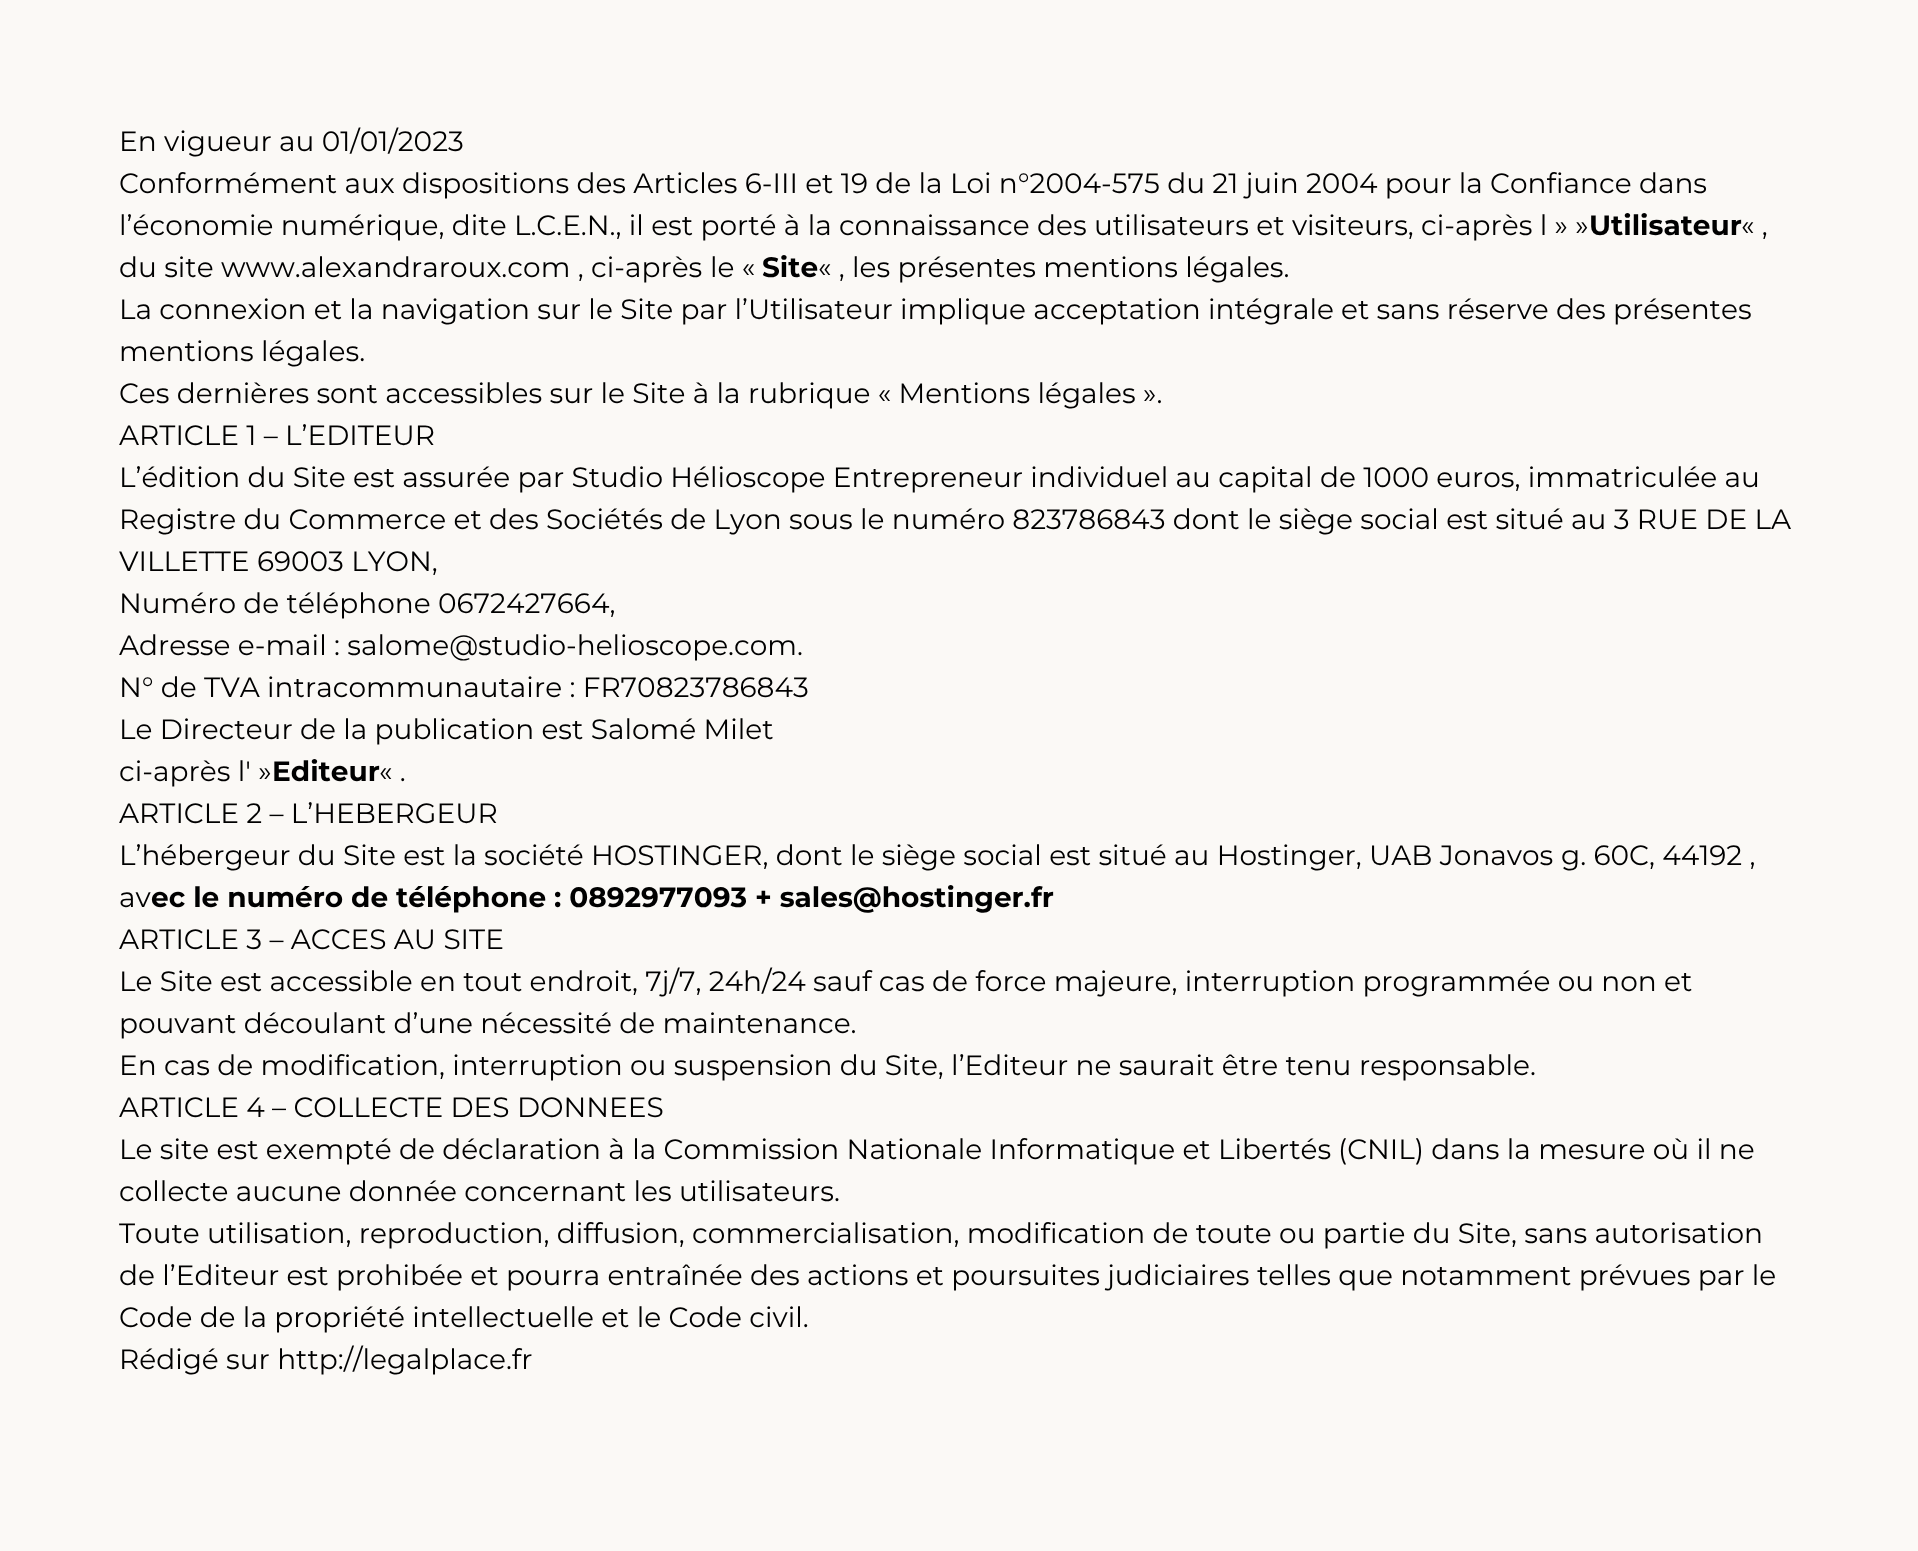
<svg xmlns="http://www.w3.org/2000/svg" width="1918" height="1551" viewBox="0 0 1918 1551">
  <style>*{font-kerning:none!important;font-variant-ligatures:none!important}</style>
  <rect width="100%" height="100%" fill="#fbf9f6"/>
  <text x="119" y="151" font-family="Montserrat" font-size="28" fill="#000000">En vigueur au 01/01/2023</text>
  <text x="119" y="193" font-family="Montserrat" font-size="28" fill="#000000">Conformément aux dispositions des Articles 6-III et 19 de la Loi n°2004-575 du 21 juin 2004 pour la Confiance dans</text>
  <text x="119" y="235" font-family="Montserrat" font-size="28" fill="#000000">l’économie numérique, dite L.C.E.N., il est porté à la connaissance des utilisateurs et visiteurs, ci-après l » »</text>
  <text x="1589" y="235" font-family="Montserrat" font-size="28" font-weight="bold" fill="#000000">Utilisateur</text>
  <text x="1741" y="235" font-family="Montserrat" font-size="28" fill="#000000">« ,</text>
  <text x="119" y="277" font-family="Montserrat" font-size="28" fill="#000000">du site www.alexandraroux.com , ci-après</text>
  <text x="710" y="277" font-family="Montserrat" font-size="28" fill="#000000">le «</text>
  <text x="762" y="277" font-family="Montserrat" font-size="28" font-weight="bold" fill="#000000">Site</text>
  <text x="818" y="277" font-family="Montserrat" font-size="28" fill="#000000">« , les présentes mentions légales.</text>
  <text x="119" y="319" font-family="Montserrat" font-size="28" fill="#000000">La connexion et la navigation sur le Site par l’Utilisateur implique acceptation intégrale</text>
  <text x="1341" y="319" font-family="Montserrat" font-size="28" fill="#000000">et sans réserve des présentes</text>
  <text x="119" y="361" font-family="Montserrat" font-size="28" fill="#000000">mentions légales.</text>
  <text x="119" y="403" font-family="Montserrat" font-size="28" fill="#000000">Ces dernières sont accessibles sur le Site à la rubrique « Mentions légales ».</text>
  <text x="119" y="445" font-family="Montserrat" font-size="28" fill="#000000">ARTICLE 1 – L’EDITEUR</text>
  <text x="119" y="487" font-family="Montserrat" font-size="28" fill="#000000">L’édition du Site est assurée par Studio Hélioscope Entrepreneur individuel au capital</text>
  <text x="1320" y="487" font-family="Montserrat" font-size="28" fill="#000000">de 1000 euros, immatriculée au</text>
  <text x="119" y="529" font-family="Montserrat" font-size="28" fill="#000000">Registre du Commerce et des Sociétés de Lyon sous le numéro 823786843 dont le siège social est situé au 3 RUE DE LA</text>
  <text x="119" y="571" font-family="Montserrat" font-size="28" fill="#000000">VILLETTE 69003 LYON,</text>
  <text x="119" y="613" font-family="Montserrat" font-size="28" fill="#000000">Numéro de téléphone 0672427664,</text>
  <text x="119" y="655" font-family="Montserrat" font-size="28" fill="#000000">Adresse e-mail : salome@studio-helioscope.com.</text>
  <text x="119" y="697" font-family="Montserrat" font-size="28" fill="#000000">N° de TVA intracommunautaire : FR70823786843</text>
  <text x="119" y="739" font-family="Montserrat" font-size="28" fill="#000000">Le Directeur de la publication est Salomé Milet</text>
  <text x="119" y="781" font-family="Montserrat" font-size="28" fill="#000000">ci-après l' »</text>
  <text x="272" y="781" font-family="Montserrat" font-size="28" font-weight="bold" fill="#000000">Editeur</text>
  <text x="379" y="781" font-family="Montserrat" font-size="28" fill="#000000">« .</text>
  <text x="119" y="823" font-family="Montserrat" font-size="28" fill="#000000">ARTICLE 2 – L’HEBERGEUR</text>
  <text x="119" y="865" font-family="Montserrat" font-size="28" fill="#000000">L’hébergeur du Site est la société HOSTINGER, dont le siège social est situé au Hostinger, UAB Jonavos</text>
  <text x="1561" y="865" font-family="Montserrat" font-size="28" fill="#000000">g. 60C, 44192 ,</text>
  <text x="119" y="907" font-family="Montserrat" font-size="28" fill="#000000">av</text>
  <text x="151" y="907" font-family="Montserrat" font-size="28" font-weight="bold" fill="#000000">ec le numéro de téléphone : 0892977093 + sales@hostinger.fr</text>
  <text x="119" y="949" font-family="Montserrat" font-size="28" fill="#000000">ARTICLE 3 – ACCES AU SITE</text>
  <text x="119" y="991" font-family="Montserrat" font-size="28" fill="#000000">Le Site est accessible en tout endroit, 7j/7, 24h/24</text>
  <text x="813" y="991" font-family="Montserrat" font-size="28" fill="#000000">sauf cas de force majeure, interruption programmée ou non et</text>
  <text x="119" y="1033" font-family="Montserrat" font-size="28" fill="#000000">pouvant découlant d’une nécessité de maintenance.</text>
  <text x="119" y="1075" font-family="Montserrat" font-size="28" fill="#000000">En cas de modification, interruption ou suspension du Site, l’Editeur ne saurait être tenu</text>
  <text x="1359" y="1075" font-family="Montserrat" font-size="28" fill="#000000">responsable.</text>
  <text x="119" y="1117" font-family="Montserrat" font-size="28" fill="#000000">ARTICLE 4 – COLLECTE DES DONNEES</text>
  <text x="119" y="1159" font-family="Montserrat" font-size="28" fill="#000000">Le site est exempté de déclaration à la Commission Nationale Informatique et Libertés</text>
  <text x="1338" y="1159" font-family="Montserrat" font-size="28" fill="#000000">(CNIL) dans la mesure où il ne</text>
  <text x="119" y="1201" font-family="Montserrat" font-size="28" fill="#000000">collecte aucune donnée concernant les utilisateurs.</text>
  <text x="119" y="1243" font-family="Montserrat" font-size="28" fill="#000000">Toute utilisation, reproduction, diffusion, commercialisation, modification de toute ou partie du Site</text>
  <text x="1511" y="1243" font-family="Montserrat" font-size="28" fill="#000000">, sans autorisation</text>
  <text x="119" y="1285" font-family="Montserrat" font-size="28" fill="#000000">de l’Editeur est prohibée et pourra entraînée des actions et poursuites judiciaires</text>
  <text x="1257" y="1285" font-family="Montserrat" font-size="28" fill="#000000">telles que notamment prévues par le</text>
  <text x="119" y="1327" font-family="Montserrat" font-size="28" fill="#000000">Code de la propriété intellectuelle et le Code civil.</text>
  <text x="119" y="1369" font-family="Montserrat" font-size="28" fill="#000000">Rédigé sur http://legalplace.fr</text>
</svg>
